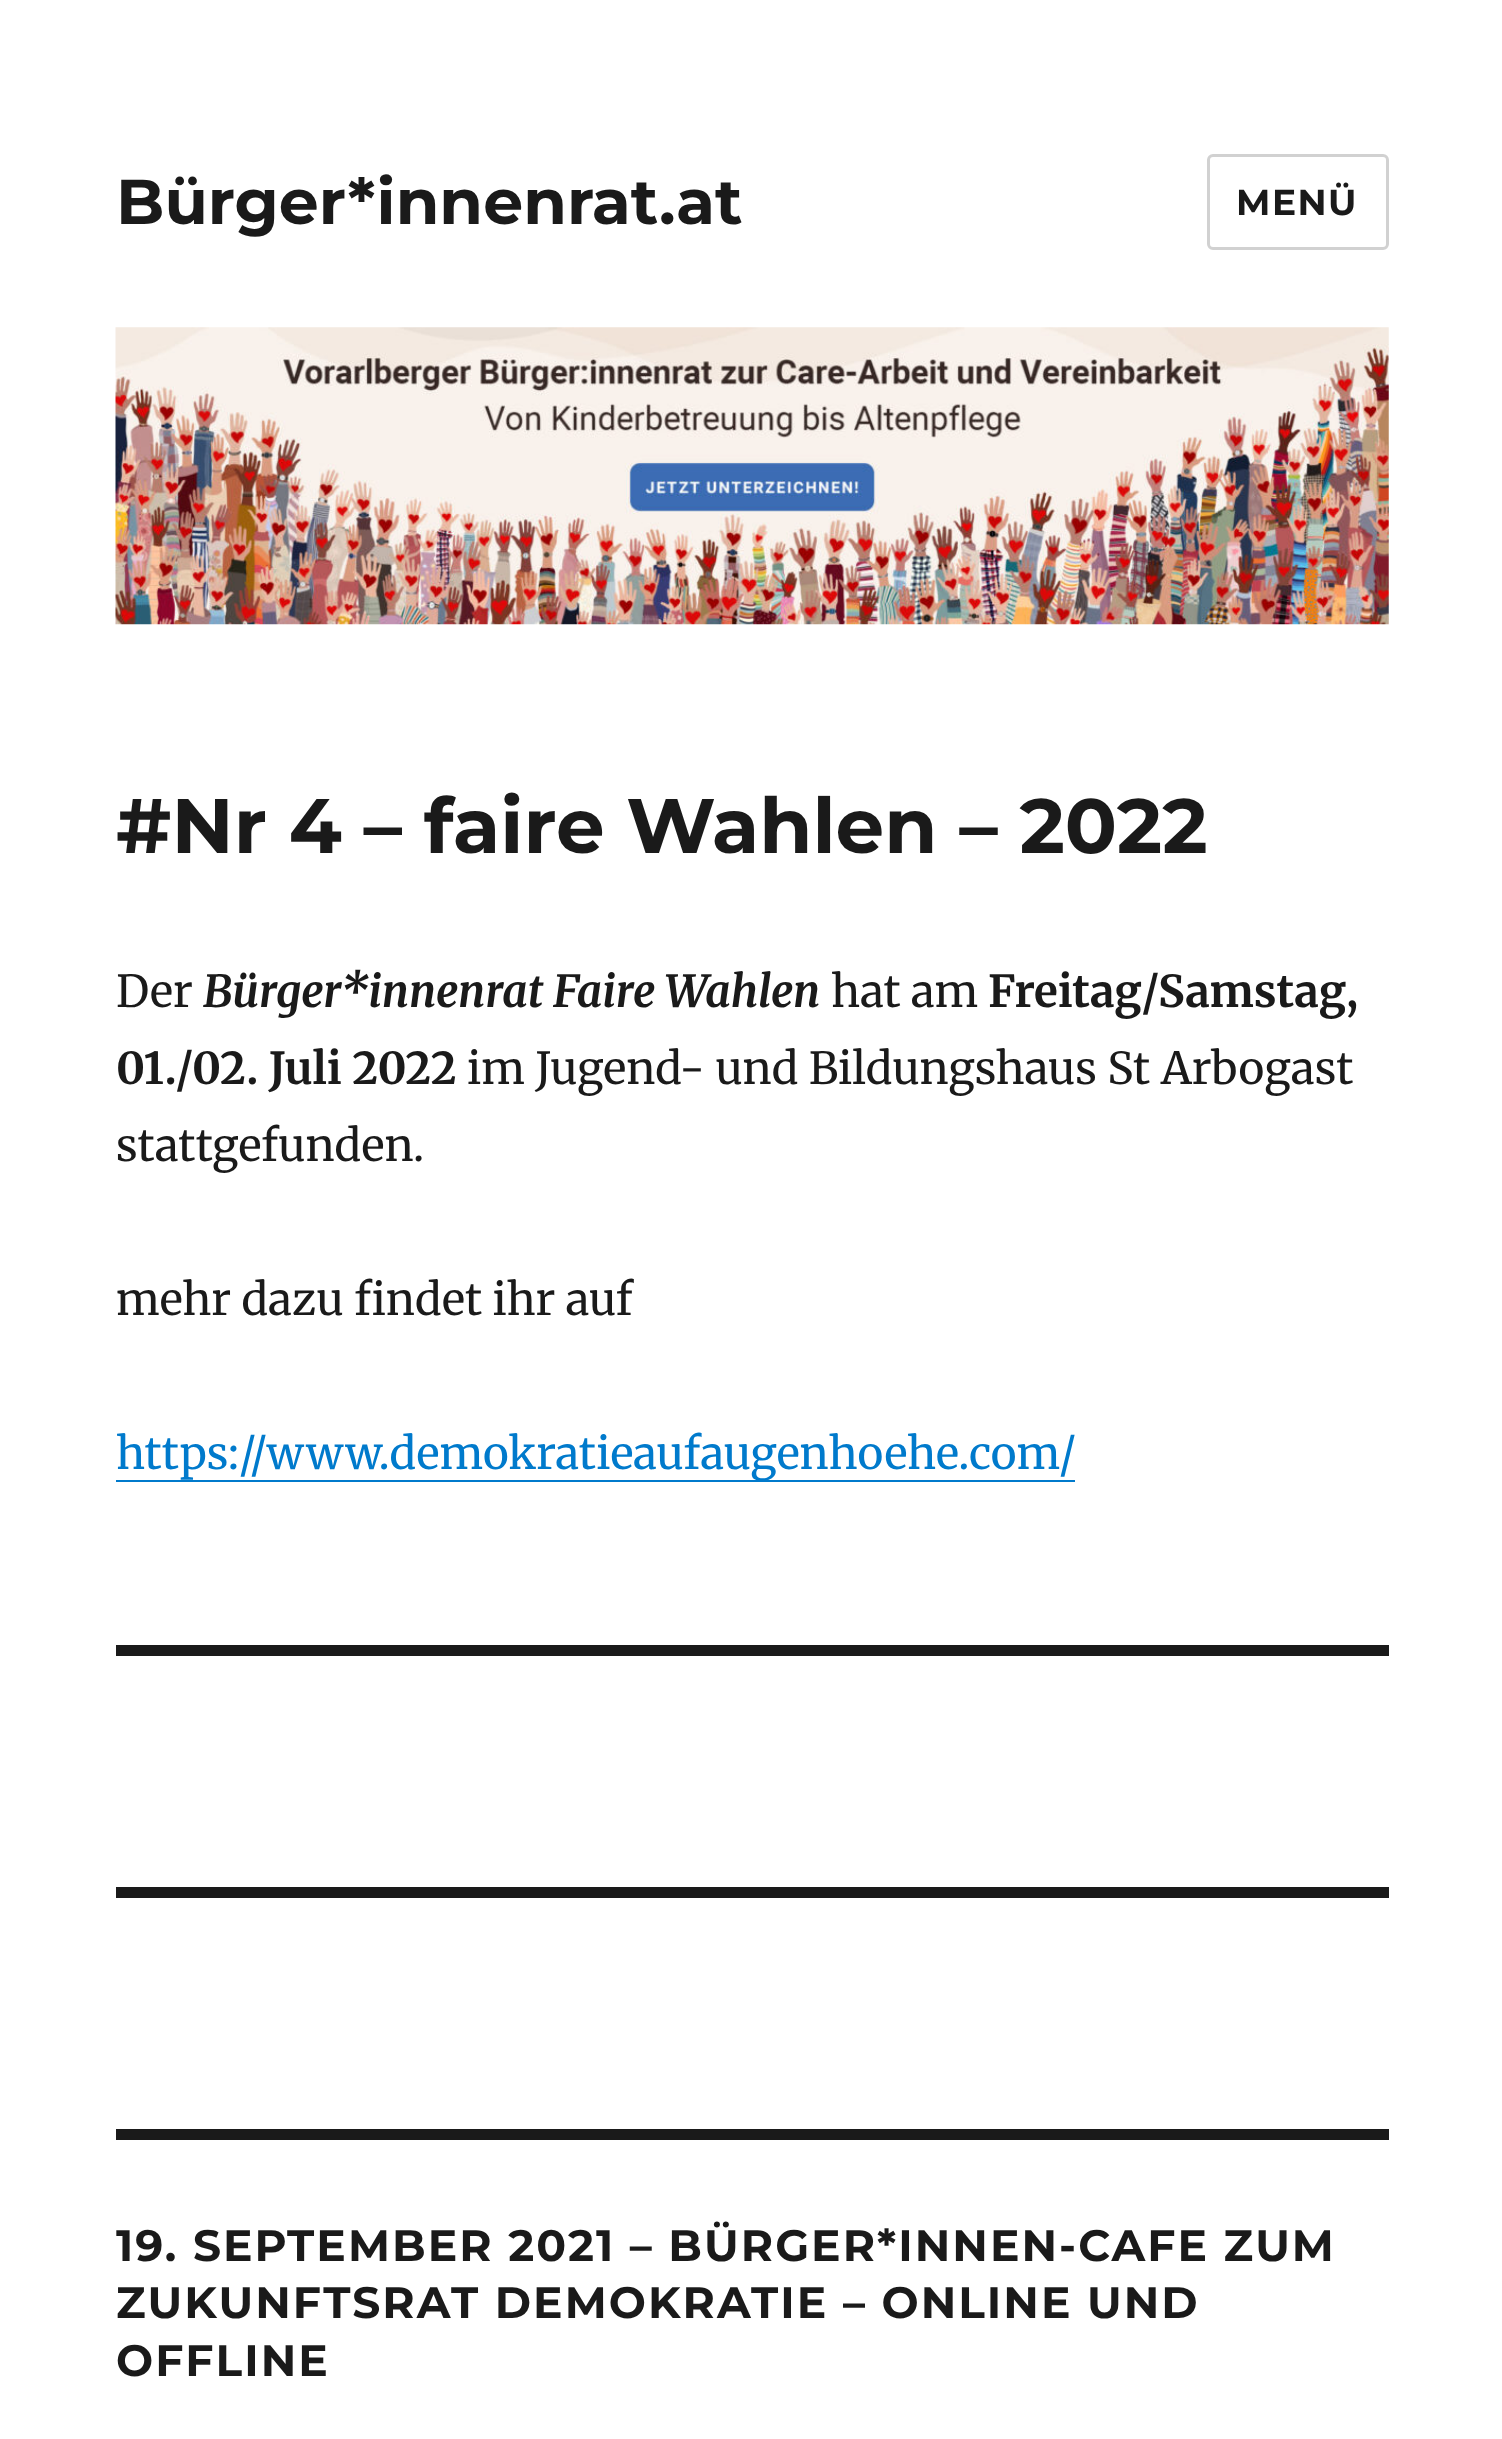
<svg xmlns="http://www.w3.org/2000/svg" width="1502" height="2439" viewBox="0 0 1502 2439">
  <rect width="100%" height="100%" fill="#ffffff"/>
  <text x="116" y="224" font-family="Montserrat" font-size="63.25" font-weight="bold" fill="#1a1a1a">Bürger*innenrat.at</text>
  <rect x="1208.5" y="155.5" width="179" height="93" rx="4.5" fill="none" stroke="#d1d1d1" stroke-width="3"/>
  <text x="1236" y="215" font-family="Montserrat" font-size="36" font-weight="bold" letter-spacing="1.5" fill="#1a1a1a">MENÜ</text>
  <image x="115" y="327" width="1274" height="298" href="img1.png"/>
  <text x="116" y="853" font-family="Montserrat" font-size="77" font-weight="bold" fill="#1a1a1a">#Nr 4 – faire Wahlen – 2022</text>
  <text x="116" y="1007" font-family="Merriweather" font-size="44" fill="#1a1a1a">Der</text>
  <text x="203" y="1007" font-family="Merriweather" font-size="44" font-weight="bold" font-style="italic" fill="#1a1a1a">Bürger*innenrat Faire Wahlen</text>
  <text x="831" y="1007" font-family="Merriweather" font-size="44" fill="#1a1a1a">hat am</text>
  <text x="988" y="1007" font-family="Merriweather" font-size="44" font-weight="bold" fill="#1a1a1a">Freitag/Samstag,</text>
  <text x="116" y="1084" font-family="Merriweather" font-size="44" font-weight="bold" fill="#1a1a1a">01./02. Juli 2022</text>
  <text x="467" y="1084" font-family="Merriweather" font-size="44" fill="#1a1a1a">im Jugend- und Bildungshaus St Arbogast</text>
  <text x="116" y="1161" font-family="Merriweather" font-size="44" fill="#1a1a1a">stattgefunden.</text>
  <text x="116" y="1315" font-family="Merriweather" font-size="44" fill="#1a1a1a">mehr dazu findet ihr auf</text>
  <rect x="116" y="1480" width="959" height="2" fill="#007acc"/>
  <text x="116" y="1469" font-family="Merriweather" font-size="44" fill="#007acc">https://www.demokratieaufaugenhoehe.com/</text>
  <rect x="116" y="1645" width="1273" height="11" fill="#1a1a1a"/>
  <rect x="116" y="1887" width="1273" height="11" fill="#1a1a1a"/>
  <rect x="116" y="2129" width="1273" height="11" fill="#1a1a1a"/>
  <text x="116" y="2261" font-family="Montserrat" font-size="44" font-weight="bold" letter-spacing="2.05" fill="#1a1a1a">19. SEPTEMBER 2021 – BÜRGER*INNEN-CAFE ZUM</text>
  <text x="116" y="2318" font-family="Montserrat" font-size="44" font-weight="bold" letter-spacing="2.05" fill="#1a1a1a">ZUKUNFTSRAT DEMOKRATIE – ONLINE UND</text>
  <text x="116" y="2376" font-family="Montserrat" font-size="44" font-weight="bold" letter-spacing="2.05" fill="#1a1a1a">OFFLINE</text>
</svg>
